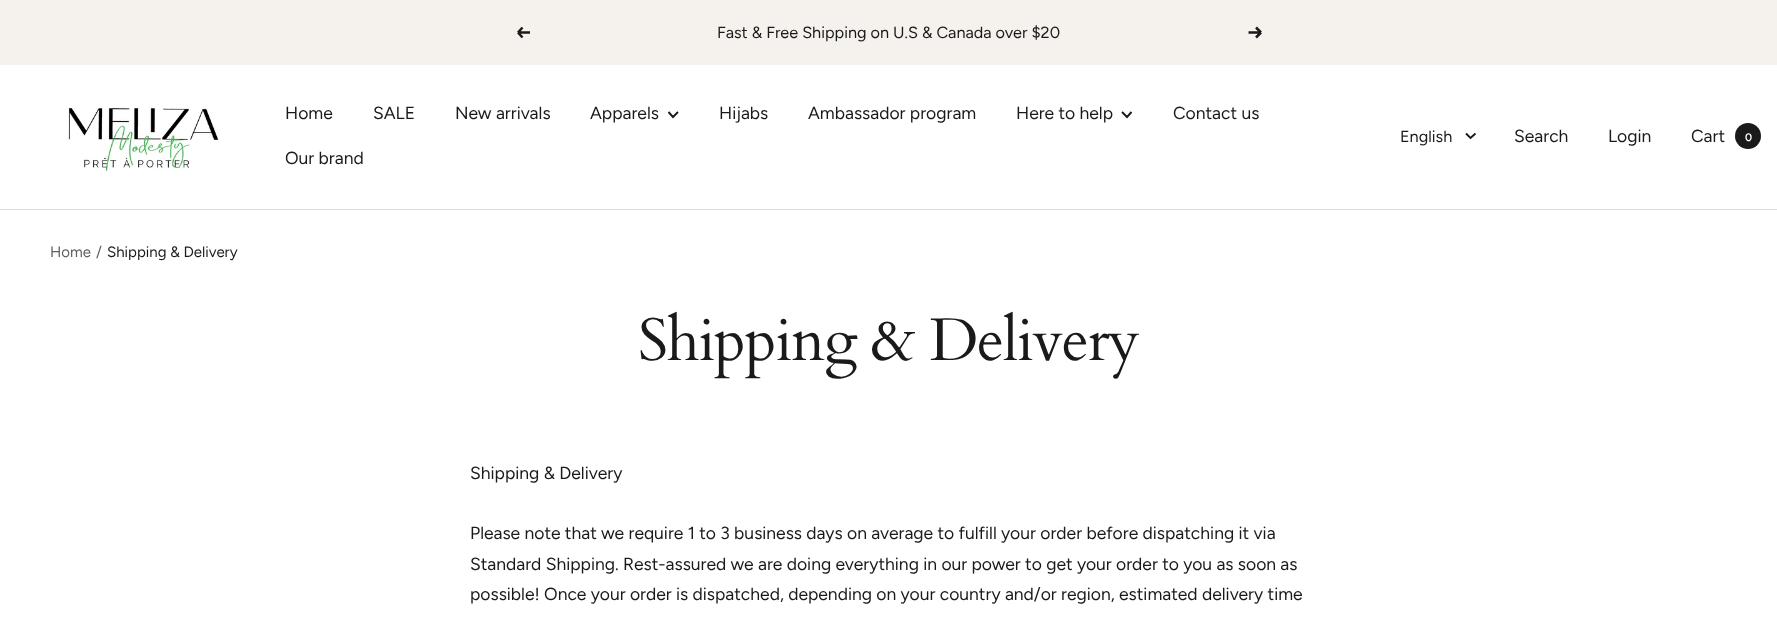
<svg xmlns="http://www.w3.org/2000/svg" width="1777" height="623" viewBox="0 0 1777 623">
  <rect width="100%" height="100%" fill="#ffffff"/>
  <rect x="0" y="0" width="1777" height="65" fill="#f5f1ec"/>
  <path d="M530 32.5H518M518 32.5L522.5 37.5M518 32.5L522.5 27.5" fill="none" stroke="#1a1a1a" stroke-width="2.5"/>
  <text x="717" y="38" font-family="Figtree" font-size="16.25" fill="#1a1a1a">Fast &amp; Free Shipping on U.S &amp; Canada over $20</text>
  <path d="M1248.5 32.5H1261M1261 32.5L1256 37.5M1261 32.5L1256 27.5" fill="none" stroke="#1a1a1a" stroke-width="2.5"/>
  <path d="M0 209V210H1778V66V209Z" fill="#dddddd"/>
  <image x="68" y="107" width="151" height="65" href="img1.png"/>
  <text x="285" y="119" font-family="Figtree" font-size="17.5" fill="#1a1a1a">Home</text>
  <text x="373" y="119" font-family="Figtree" font-size="17.5" fill="#1a1a1a">SALE</text>
  <text x="455" y="119" font-family="Figtree" font-size="17.5" fill="#1a1a1a">New arrivals</text>
  <text x="590" y="119" font-family="Figtree" font-size="17.5" fill="#1a1a1a">Apparels</text>
  <path d="M668.5 112L673 117L678 112" fill="none" stroke="#1a1a1a" stroke-width="1.9"/>
  <text x="719" y="119" font-family="Figtree" font-size="17.5" fill="#1a1a1a">Hijabs</text>
  <text x="808" y="119" font-family="Figtree" font-size="17.5" fill="#1a1a1a">Ambassador program</text>
  <text x="1016" y="119" font-family="Figtree" font-size="17.5" fill="#1a1a1a">Here to help</text>
  <path d="M1122 112L1127 117L1131.5 112" fill="none" stroke="#1a1a1a" stroke-width="1.9"/>
  <text x="1173" y="119" font-family="Figtree" font-size="17.5" fill="#1a1a1a">Contact us</text>
  <text x="285" y="164" font-family="Figtree" font-size="17.5" fill="#1a1a1a">Our brand</text>
  <text x="1400" y="142" font-family="Figtree" font-size="16.25" fill="#1a1a1a">English</text>
  <path d="M1466 133.5L1470.5 138L1475.5 133.5" fill="none" stroke="#1a1a1a" stroke-width="1.9"/>
  <text x="1514" y="142" font-family="Figtree" font-size="17.5" fill="#1a1a1a">Search</text>
  <text x="1608" y="142" font-family="Figtree" font-size="17.5" fill="#1a1a1a">Login</text>
  <text x="1691" y="142" font-family="Figtree" font-size="17.5" fill="#1a1a1a">Cart</text>
  <circle cx="1748" cy="136" r="13" fill="#1a1a1a"/>
  <text x="1745" y="141" font-family="Figtree" font-size="11" font-weight="600" fill="#ffffff">0</text>
  <text x="50" y="257" font-family="Figtree" font-size="15" fill="#5f5f5f">Home</text>
  <text x="96" y="257" font-family="Figtree" font-size="15" fill="#5f5f5f">/</text>
  <text x="107" y="257" font-family="Figtree" font-size="15" fill="#1a1a1a">Shipping &amp; Delivery</text>
  <text x="638" y="360" font-family="Cardo" font-size="60" letter-spacing="-1.25" fill="#1a1a1a">Shipping &amp; Delivery</text>
  <text x="470" y="479" font-family="Figtree" font-size="17.5" fill="#1a1a1a">Shipping &amp; Delivery</text>
  <text x="470" y="539" font-family="Figtree" font-size="17.5" fill="#1a1a1a">Please note that we require 1 to 3 business days on average to fulfill your order before dispatching it via</text>
  <text x="470" y="570" font-family="Figtree" font-size="17.5" fill="#1a1a1a">Standard Shipping. Rest-assured we are doing everything in our power to get your order to you as soon as</text>
  <text x="470" y="600" font-family="Figtree" font-size="17.5" fill="#1a1a1a">possible! Once your order is dispatched, depending on your country and/or region, estimated delivery time</text>
</svg>
